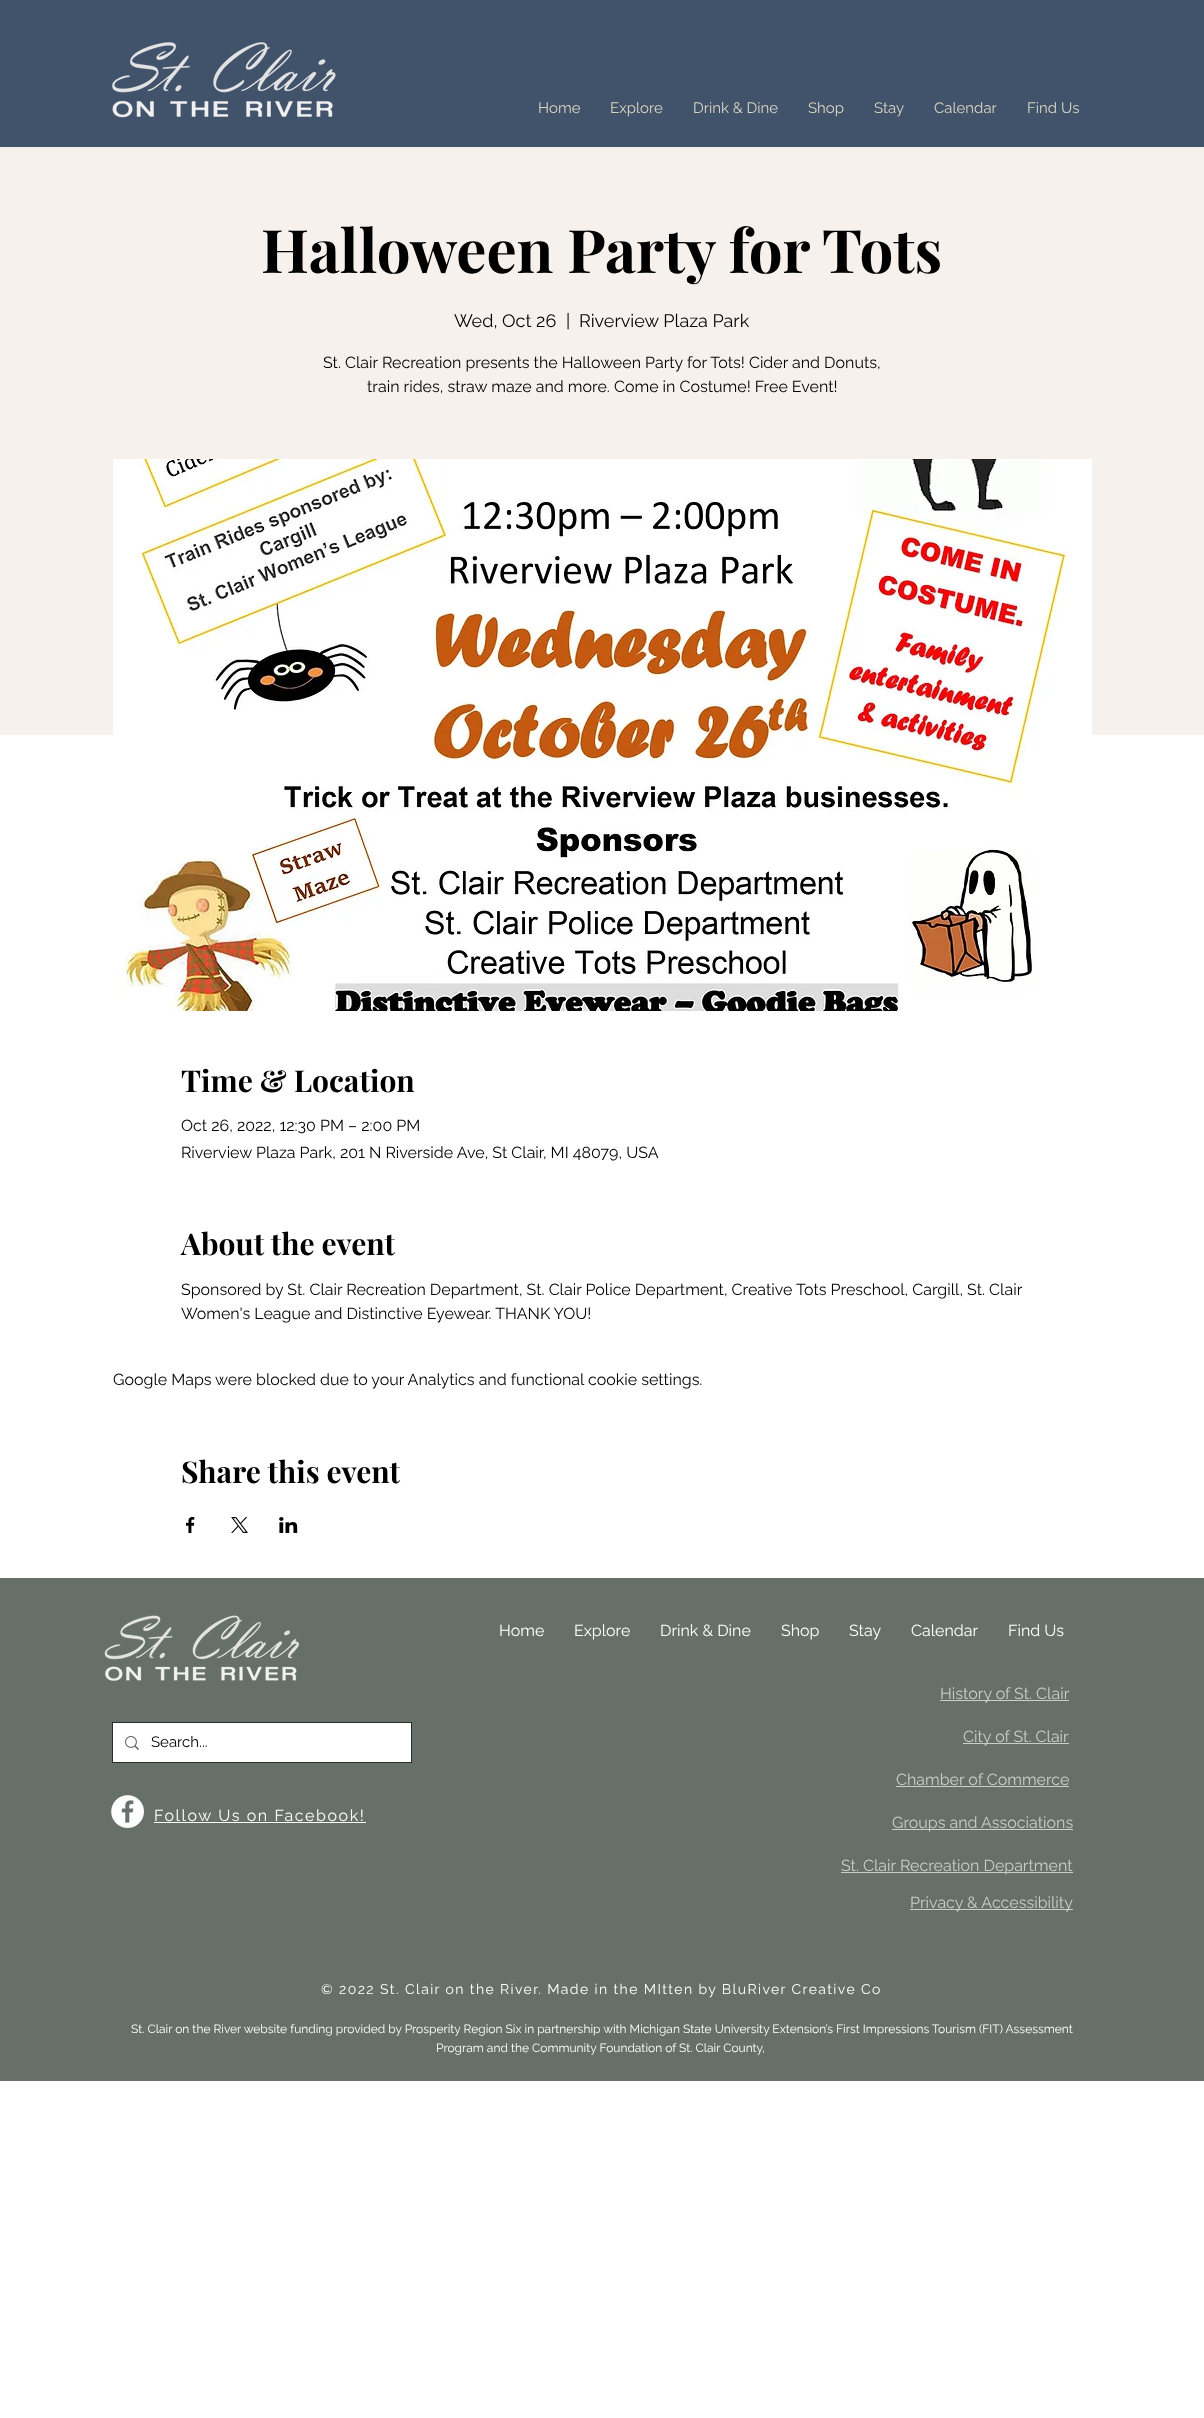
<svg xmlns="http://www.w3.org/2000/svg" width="1204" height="2418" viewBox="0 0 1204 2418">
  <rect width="100%" height="100%" fill="#ffffff"/>
  <rect x="0" y="0" width="1204" height="147" fill="#41526b"/>
  <image x="111" y="42" width="225" height="76" href="img1.png"/>
  <text x="538" y="113" font-family="Raleway" font-size="15" fill="#d7d5c0">Home</text>
  <text x="610" y="113" font-family="Raleway" font-size="15" fill="#d7d5c0">Explore</text>
  <text x="693" y="113" font-family="Raleway" font-size="15" fill="#d7d5c0">Drink &amp; Dine</text>
  <text x="808" y="113" font-family="Raleway" font-size="15" fill="#d7d5c0">Shop</text>
  <text x="874" y="113" font-family="Raleway" font-size="15" fill="#d7d5c0">Stay</text>
  <text x="934" y="113" font-family="Raleway" font-size="15" fill="#d7d5c0">Calendar</text>
  <text x="1027" y="113" font-family="Raleway" font-size="15" fill="#d7d5c0">Find Us</text>
  <rect x="0" y="147" width="1204" height="588" fill="#f6f1ed"/>
  <text x="261" y="273" font-family="Playfair Display" font-size="60" font-weight="bold" fill="#000000">Halloween Party for Tots</text>
  <text x="454" y="327" font-family="Raleway" font-size="18" fill="#000000">Wed, Oct 26</text>
  <text x="566" y="327" font-family="Raleway" font-size="18" fill="#000000">|</text>
  <text x="579" y="327" font-family="Raleway" font-size="18" fill="#000000">Riverview Plaza Park</text>
  <text x="323" y="368" font-family="Raleway" font-size="16" fill="#000000">St. Clair Recreation presents the Halloween Party for Tots! Cider and Donuts,</text>
  <text x="367" y="392" font-family="Raleway" font-size="16" fill="#000000">train rides, straw maze and more. Come in Costume! Free Event!</text>
  <image x="113" y="459" width="979" height="552" href="img2.png"/>
  <text x="181" y="1092" font-family="Playfair Display" font-size="30" font-weight="bold" fill="#000000">Time &amp; Location</text>
  <text x="181" y="1131" font-family="Raleway" font-size="16" fill="#000000">Oct 26, 2022, 12:30 PM – 2:00 PM</text>
  <text x="181" y="1158" font-family="Raleway" font-size="16" fill="#000000">Riverview Plaza Park, 201 N Riverside Ave, St Clair, MI 48079, USA</text>
  <text x="181" y="1255" font-family="Playfair Display" font-size="30" font-weight="bold" fill="#000000">About the event</text>
  <text x="181" y="1295" font-family="Raleway" font-size="16" fill="#000000">Sponsored by St. Clair Recreation Department, St. Clair Police Department, Creative Tots Preschool, Cargill, St. Clair</text>
  <text x="181" y="1319" font-family="Raleway" font-size="16" fill="#000000">Women's League and Distinctive Eyewear. THANK YOU!</text>
  <text x="113" y="1385" font-family="Raleway" font-size="16" fill="#000000">Google Maps were blocked due to your Analytics and functional cookie settings.</text>
  <text x="181" y="1483" font-family="Playfair Display" font-size="30" font-weight="bold" fill="#000000">Share this event</text>
  <image x="186" y="1517" width="9" height="16" href="img3.png"/>
  <image x="231" y="1517" width="17" height="16" href="img4.png"/>
  <image x="279" y="1517" width="19" height="16" href="img5.png"/>
  <rect x="0" y="1578" width="1204" height="503" fill="#677068"/>
  <image x="104" y="1615" width="195" height="66" href="img6.png"/>
  <text x="499" y="1636" font-family="Raleway" font-size="16" fill="#ffffff">Home</text>
  <text x="574" y="1636" font-family="Raleway" font-size="16" fill="#ffffff">Explore</text>
  <text x="660" y="1636" font-family="Raleway" font-size="16" fill="#ffffff">Drink &amp; Dine</text>
  <text x="781" y="1636" font-family="Raleway" font-size="16" fill="#ffffff">Shop</text>
  <text x="849" y="1636" font-family="Raleway" font-size="16" fill="#ffffff">Stay</text>
  <text x="911" y="1636" font-family="Raleway" font-size="16" fill="#ffffff">Calendar</text>
  <text x="1008" y="1636" font-family="Raleway" font-size="16" fill="#ffffff">Find Us</text>
  <rect x="112.5" y="1722.5" width="299" height="40" fill="none" stroke="#292d2a"/>
  <rect x="113" y="1723" width="298" height="39" fill="#ffffff"/>
  <image x="125" y="1736" width="14" height="14" href="img7.png"/>
  <text x="151" y="1747" font-family="Raleway" font-size="15" fill="#000000">Search...</text>
  <rect x="940" y="1700" width="129" height="1" fill="#c7cfc8"/>
  <text x="940" y="1699" font-family="Raleway" font-size="16" fill="#c7cfc8">History of St. Clair</text>
  <rect x="963" y="1743" width="106" height="1" fill="#c7cfc8"/>
  <text x="963" y="1742" font-family="Raleway" font-size="16" fill="#c7cfc8">City of St. Clair</text>
  <text x="896" y="1785" font-family="Raleway" font-size="16" fill="#c7cfc8">Chamber of Commerce</text>
  <rect x="896" y="1786" width="173" height="1" fill="#c7cfc8"/>
  <rect x="892" y="1829" width="181" height="1" fill="#c7cfc8"/>
  <text x="892" y="1828" font-family="Raleway" font-size="16" fill="#c7cfc8">Groups and Associations</text>
  <rect x="841" y="1872" width="232" height="1" fill="#c7cfc8"/>
  <text x="841" y="1871" font-family="Raleway" font-size="16" fill="#c7cfc8">St. Clair Recreation Department</text>
  <rect x="910" y="1909" width="163" height="1" fill="#c7cfc8"/>
  <text x="910" y="1908" font-family="Raleway" font-size="16" fill="#c7cfc8">Privacy &amp; Accessibility</text>
  <image x="111" y="1795" width="33" height="33" href="img8.png"/>
  <text x="154" y="1821" font-family="Raleway" font-size="16" letter-spacing="1.6" fill="#ffffff">Follow Us on Facebook!</text>
  <rect x="154" y="1822" width="212" height="1" fill="#ffffff"/>
  <text x="321" y="1994" font-family="Raleway" font-size="14" letter-spacing="1.4" fill="#ffffff">© 2022 St. Clair on the River. Made in the MItten by BluRiver Creative Co</text>
  <text x="131" y="2033" font-family="Raleway" font-size="12" fill="#ffffff">St. Clair on the River website funding provided by Prosperity Region Six in partnership with Michigan State University Extension’s First Impressions Tourism (FIT) Assessment</text>
  <text x="436" y="2052" font-family="Raleway" font-size="12" fill="#ffffff">Program and the Community Foundation of St. Clair County,</text>
</svg>
